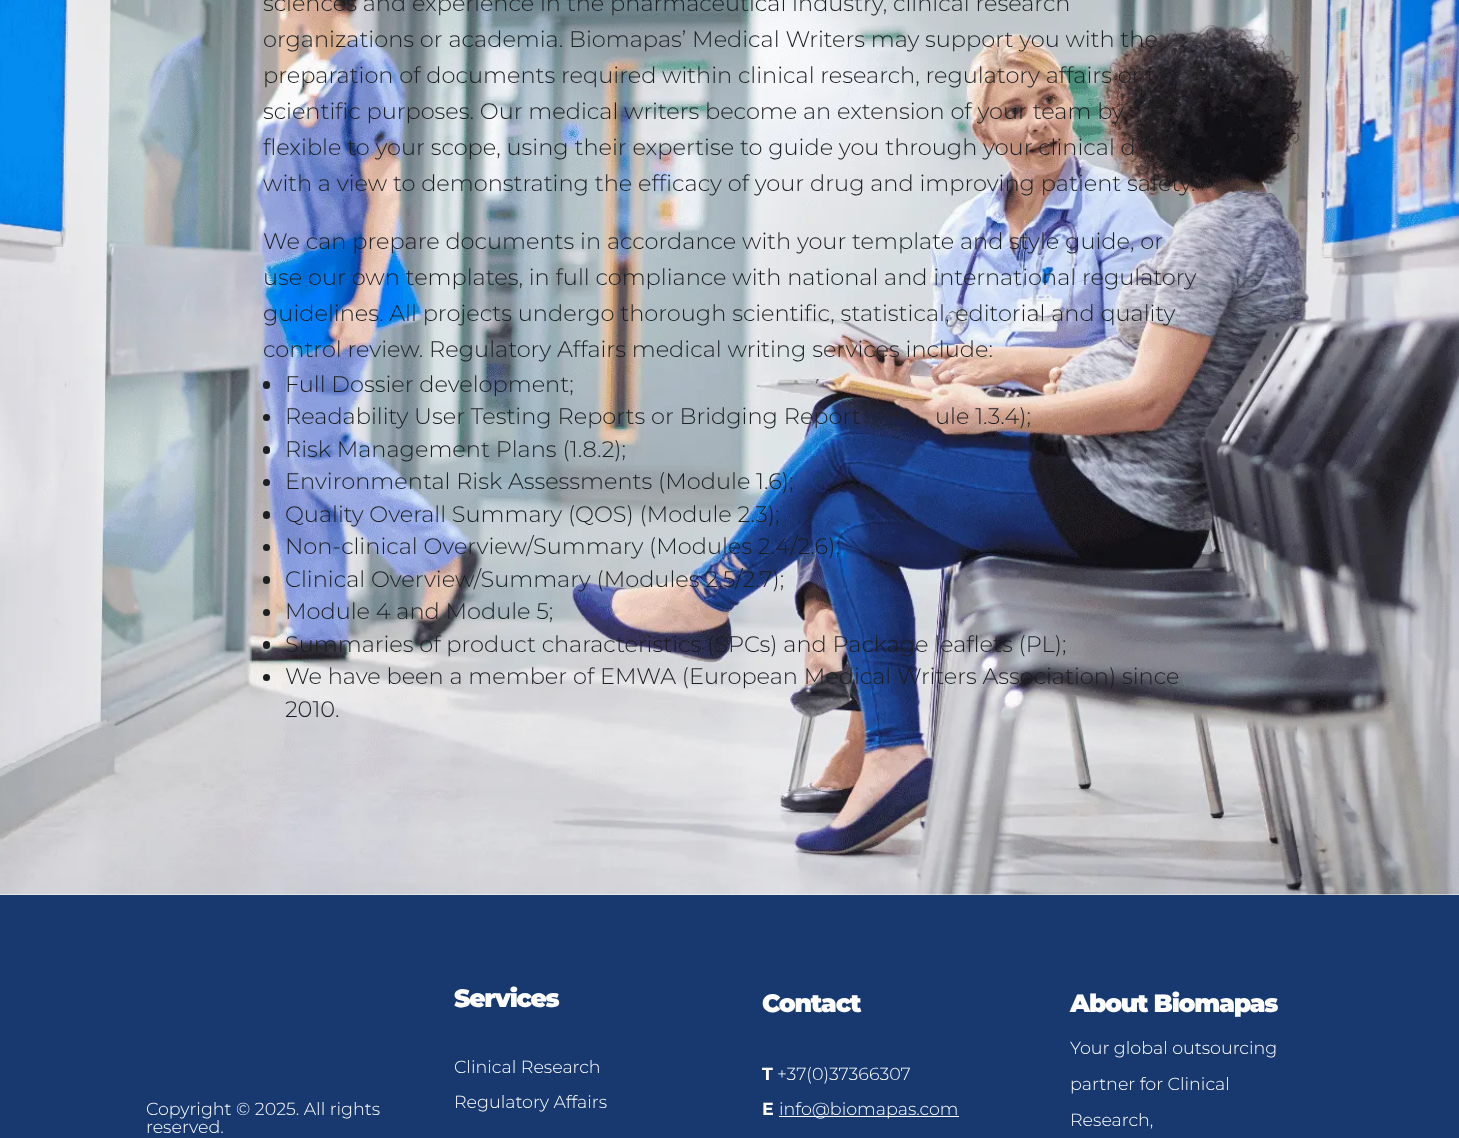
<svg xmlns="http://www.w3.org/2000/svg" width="1459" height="1138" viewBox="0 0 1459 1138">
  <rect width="100%" height="100%" fill="#ffffff"/>
  <image x="0" y="0" width="1459" height="895" href="img1.png"/>
  <text x="263" y="11" font-family="Montserrat" font-size="22.5" font-weight="300" fill="#1c1f22">sciences and experience in the pharmaceutical industry, clinical research</text>
  <text x="263" y="47" font-family="Montserrat" font-size="22.5" font-weight="300" fill="#1c1f22">organizations or academia. Biomapas’ Medical Writers may support you with the</text>
  <text x="263" y="83" font-family="Montserrat" font-size="22.5" font-weight="300" fill="#1c1f22">preparation of documents required within clinical research, regulatory affairs or f</text>
  <text x="263" y="119" font-family="Montserrat" font-size="22.5" font-weight="300" fill="#1c1f22">scientific purposes. Our medical writers become an extension of your team by</text>
  <text x="263" y="155" font-family="Montserrat" font-size="22.5" font-weight="300" fill="#1c1f22">flexible to your scope, using their expertise to guide you through your clinical d</text>
  <text x="263" y="191" font-family="Montserrat" font-size="22.5" font-weight="300" fill="#1c1f22">with a view to demonstrating the efficacy of your drug and improving patient safety.</text>
  <text x="263" y="249" font-family="Montserrat" font-size="22.5" font-weight="300" fill="#1c1f22">We can prepare documents in accordance with your template and style guide, or</text>
  <text x="263" y="285" font-family="Montserrat" font-size="22.5" font-weight="300" fill="#1c1f22">use our own templates, in full compliance with national and international regulatory</text>
  <text x="263" y="321" font-family="Montserrat" font-size="22.5" font-weight="300" fill="#1c1f22">guidelines. All projects undergo thorough scientific, statistical, editorial and quality</text>
  <text x="263" y="357" font-family="Montserrat" font-size="22.5" font-weight="300" fill="#1c1f22">control review. Regulatory Affairs medical writing services include:</text>
  <rect x="263" y="381" width="7" height="8" rx="3.5" fill="#1c1f22"/>
  <text x="285" y="392" font-family="Montserrat" font-size="22.5" font-weight="300" fill="#1c1f22">Full Dossier development;</text>
  <circle cx="266.5" cy="417.5" r="3.5" fill="#1c1f22"/>
  <text x="285" y="424" font-family="Montserrat" font-size="22.5" font-weight="300" fill="#1c1f22">Readability User Testing Reports or Bridging Report</text>
  <text x="935" y="424" font-family="Montserrat" font-size="22.5" font-weight="300" fill="#1c1f22">ule 1.3.4);</text>
  <rect x="263" y="446" width="7" height="8" rx="3.5" fill="#1c1f22"/>
  <text x="285" y="457" font-family="Montserrat" font-size="22.5" font-weight="300" fill="#1c1f22">Risk Management Plans (1.8.2);</text>
  <circle cx="266.5" cy="482.5" r="3.5" fill="#1c1f22"/>
  <text x="285" y="489" font-family="Montserrat" font-size="22.5" font-weight="300" fill="#1c1f22">Environmental Risk Assessments (Module 1.6);</text>
  <rect x="263" y="511" width="7" height="8" rx="3.5" fill="#1c1f22"/>
  <text x="285" y="522" font-family="Montserrat" font-size="22.5" font-weight="300" fill="#1c1f22">Quality Overall Summary (QOS) (Module 2.3);</text>
  <circle cx="266.5" cy="547.5" r="3.5" fill="#1c1f22"/>
  <text x="285" y="554" font-family="Montserrat" font-size="22.5" font-weight="300" fill="#1c1f22">Non-clinical Overview/Summary (Modules 2.4/2.6);</text>
  <rect x="263" y="576" width="7" height="8" rx="3.5" fill="#1c1f22"/>
  <text x="285" y="587" font-family="Montserrat" font-size="22.5" font-weight="300" fill="#1c1f22">Clinical Overview/Summary (Modules 2.5/2.7);</text>
  <circle cx="266.5" cy="612.5" r="3.5" fill="#1c1f22"/>
  <text x="285" y="619" font-family="Montserrat" font-size="22.5" font-weight="300" fill="#1c1f22">Module 4 and Module 5;</text>
  <rect x="263" y="641" width="7" height="8" rx="3.5" fill="#1c1f22"/>
  <text x="285" y="652" font-family="Montserrat" font-size="22.5" font-weight="300" fill="#1c1f22">Summaries of product characteristics (SPCs) and Package leaflets (PL);</text>
  <circle cx="266.5" cy="677.5" r="3.5" fill="#1c1f22"/>
  <text x="285" y="684" font-family="Montserrat" font-size="22.5" font-weight="300" fill="#1c1f22">We have been a member of EMWA (European Medical Writers Association) since</text>
  <text x="285" y="717" font-family="Montserrat" font-size="22.5" font-weight="300" fill="#1c1f22">2010.</text>
  <rect x="0" y="895" width="1459" height="243" fill="#173970"/>
  <text x="146" y="1115" font-family="Montserrat" font-size="17.5" font-weight="300" fill="#ffffff">Copyright © 2025. All rights</text>
  <text x="146" y="1133" font-family="Montserrat" font-size="17.5" font-weight="300" fill="#ffffff">reserved.</text>
  <text x="454" y="1007" font-family="Montserrat" font-size="25" font-weight="900" letter-spacing="-1.25" fill="#ffffff">Services</text>
  <text x="454" y="1073" font-family="Montserrat" font-size="17.5" font-weight="300" fill="#ffffff">Clinical Research</text>
  <text x="454" y="1108" font-family="Montserrat" font-size="17.5" font-weight="300" fill="#ffffff">Regulatory Affairs</text>
  <text x="762" y="1012" font-family="Montserrat" font-size="25" font-weight="900" letter-spacing="-1.25" fill="#ffffff">Contact</text>
  <text x="762" y="1080" font-family="Montserrat" font-size="17.5" font-weight="bold" fill="#ffffff">T</text>
  <text x="777" y="1080" font-family="Montserrat" font-size="17.5" font-weight="300" fill="#ffffff">+37(0)37366307</text>
  <text x="762" y="1115" font-family="Montserrat" font-size="17.5" font-weight="bold" fill="#ffffff">E</text>
  <rect x="779" y="1116" width="180" height="1" fill="#ffffff"/>
  <text x="779" y="1115" font-family="Montserrat" font-size="17.5" font-weight="300" fill="#ffffff">info@biomapas.com</text>
  <text x="1070" y="1012" font-family="Montserrat" font-size="25" font-weight="900" letter-spacing="-1.25" fill="#ffffff">About Biomapas</text>
  <text x="1070" y="1054" font-family="Montserrat" font-size="17.5" font-weight="300" fill="#ffffff">Your global outsourcing</text>
  <text x="1070" y="1090" font-family="Montserrat" font-size="17.5" font-weight="300" fill="#ffffff">partner for Clinical</text>
  <text x="1070" y="1126" font-family="Montserrat" font-size="17.5" font-weight="300" fill="#ffffff">Research,</text>
</svg>
